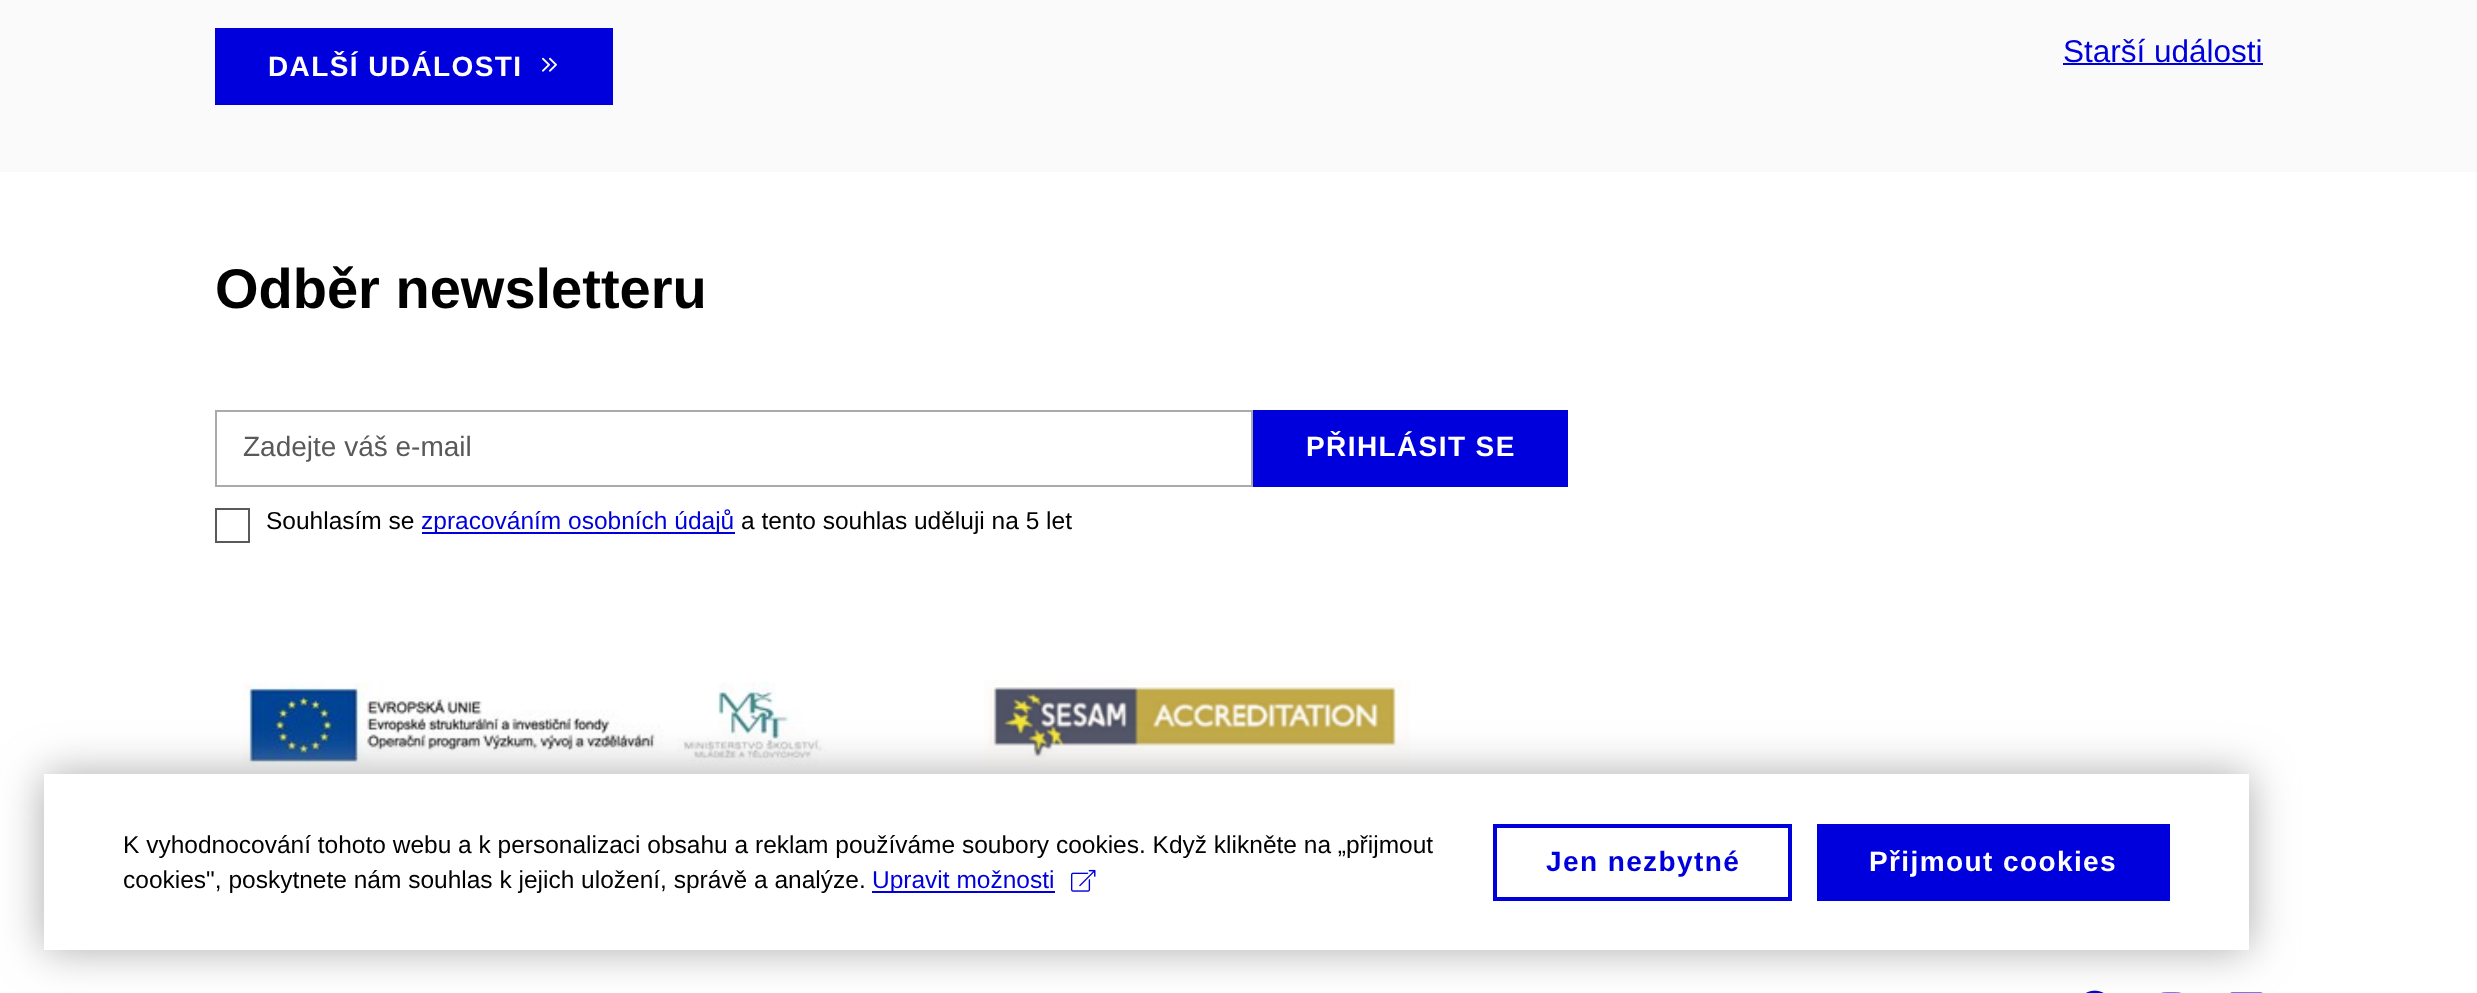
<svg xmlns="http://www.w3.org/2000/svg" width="2477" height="993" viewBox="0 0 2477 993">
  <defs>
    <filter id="blur1" x="-50%" y="-200%" width="200%" height="500%"><feGaussianBlur stdDeviation="22"/></filter>
  </defs>
  <rect width="100%" height="100%" fill="#fafafa"/>
  <rect x="215" y="28" width="398" height="77" fill="#0000dc"/>
  <text x="268" y="76" font-family="Liberation Sans" font-size="28" font-weight="bold" letter-spacing="1.4" fill="#ffffff">DALŠÍ UDÁLOSTI</text>
  <image x="541" y="57" width="16" height="15" href="img1.png"/>
  <text x="2063" y="62" font-family="Liberation Sans" font-size="31.5" fill="#0000dc">Starší události</text>
  <rect x="2063" y="63" width="200" height="2" fill="#0000dc"/>
  <rect x="0" y="172" width="2477" height="821" fill="#ffffff"/>
  <text x="215" y="308" font-family="Liberation Sans" font-size="56" font-weight="bold" fill="#000000">Odběr newsletteru</text>
  <rect x="216" y="411" width="1036" height="75" fill="none" stroke="#aaaaaa" stroke-width="2"/>
  <text x="243" y="456" font-family="Liberation Sans" font-size="28" fill="#595959">Zadejte váš e-mail</text>
  <rect x="1253" y="410" width="315" height="77" fill="#0000dc"/>
  <text x="1306" y="456" font-family="Liberation Sans" font-size="28" font-weight="bold" letter-spacing="1.4" fill="#ffffff">PŘIHLÁSIT SE</text>
  <rect x="216" y="509" width="33" height="33" fill="none" stroke="#595959" stroke-width="2"/>
  <text x="266" y="529" font-family="Liberation Sans" font-size="24.5" fill="#000000">Souhlasím se</text>
  <rect x="422" y="532" width="313" height="2" fill="#0000dc"/>
  <text x="421" y="529" font-family="Liberation Sans" font-size="24.5" fill="#0000dc">zpracováním osobních údajů</text>
  <text x="741" y="529" font-family="Liberation Sans" font-size="24.5" fill="#000000">a tento souhlas uděluji na 5 let</text>
  <image x="242" y="682" width="584" height="85" href="img2.png"/>
  <image x="984" y="680" width="426" height="87" href="img3.png"/>
  <image x="2086" y="990" width="18" height="3" href="img4.png"/>
  <image x="2161" y="992" width="20" height="1" href="img5.png"/>
  <image x="2230" y="992" width="33" height="1" href="img6.png"/>
  <rect x="44" y="774" width="2205" height="176" fill="#aaaaaa" filter="url(#blur1)"/>
  <rect x="44" y="774" width="2205" height="176" fill="#ffffff"/>
  <text x="123" y="853" font-family="Liberation Sans" font-size="24.5" fill="#000000">K vyhodnocování tohoto webu a k personalizaci obsahu a reklam používáme soubory cookies. Když klikněte na „přijmout</text>
  <text x="123" y="888" font-family="Liberation Sans" font-size="24.5" fill="#000000">cookies", poskytnete nám souhlas k jejich uložení, správě a analýze.</text>
  <rect x="872" y="891" width="183" height="2" fill="#0000dc"/>
  <text x="872" y="888" font-family="Liberation Sans" font-size="24.5" fill="#0000dc">Upravit možnosti</text>
  <image x="1071" y="869" width="25" height="23" href="img7.png"/>
  <rect x="1495" y="826" width="295" height="73" fill="none" stroke="#0000dc" stroke-width="4"/>
  <text x="1546" y="871" font-family="Liberation Sans" font-size="28" font-weight="bold" letter-spacing="1.4" fill="#0000dc">Jen nezbytné</text>
  <rect x="1817" y="824" width="353" height="77" fill="#0000dc"/>
  <text x="1869" y="871" font-family="Liberation Sans" font-size="28" font-weight="bold" letter-spacing="1.4" fill="#ffffff">Přijmout cookies</text>
</svg>
